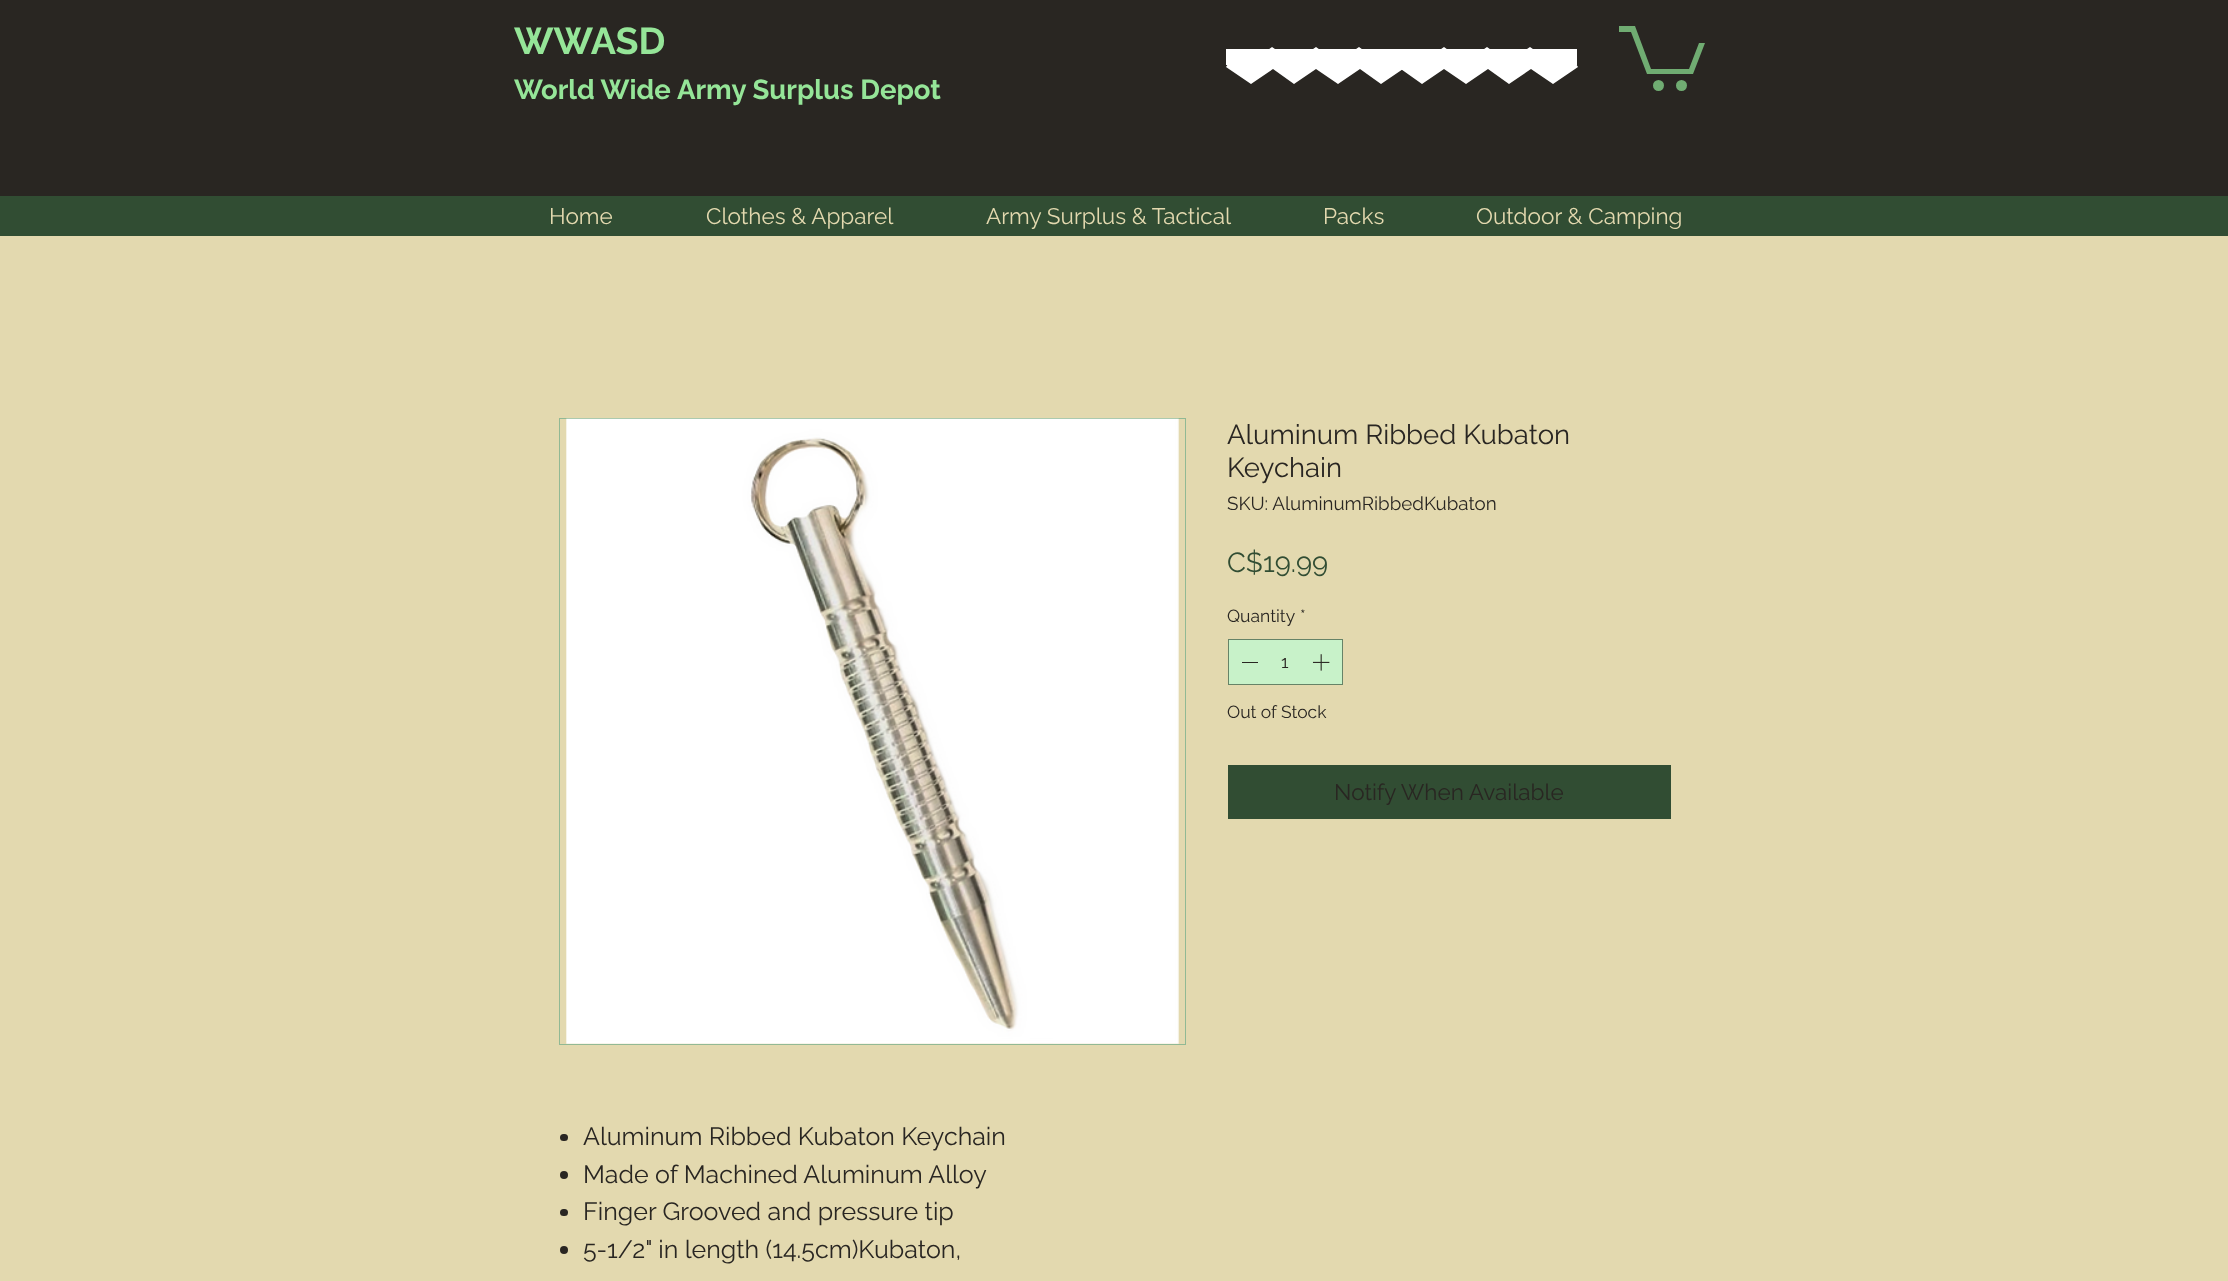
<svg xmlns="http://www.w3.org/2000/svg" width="2228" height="1281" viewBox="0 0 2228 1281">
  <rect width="100%" height="100%" fill="#e3d9af"/>
  <rect x="0" y="0" width="2228" height="196" fill="#292622"/>
  <text x="514" y="54" font-family="Raleway" font-size="37.5" font-weight="bold" fill="#95e598">WWASD</text>
  <text x="514" y="99" font-family="Raleway" font-size="27.5" font-weight="bold" fill="#95e598">World Wide</text>
  <text x="677" y="99" font-family="Raleway" font-size="27.5" font-weight="bold" fill="#95e598">Army Surplus Depot</text>
  <rect x="1226" y="49" width="351" height="16" fill="#ffffff"/>
  <path d="M1400 58L1381 71L1360 56L1338 71L1316 56L1294 71L1273 56L1251 71L1232 58L1226 67L1251 84L1273 69L1294 84L1316 69L1338 84L1360 69L1381 84L1406 67Z" fill="#ffffff"/>
  <path d="M1572 58L1553 71L1531 56L1509 71L1488 56L1466 71L1444 56L1422 71L1403 58L1398 67L1422 84L1444 69L1466 84L1488 69L1509 84L1531 69L1553 84L1578 67Z" fill="#ffffff"/>
  <path d="M1399 49L1380 62L1359 47L1337 62L1316 47L1294 62L1272 47L1251 62L1232 49L1226 58L1251 74L1272 60L1294 74L1316 60L1337 74L1359 60L1380 74L1405 58Z" fill="#ffffff"/>
  <path d="M1570 49L1552 62L1530 47L1508 62L1487 47L1465 62L1444 47L1422 62L1403 49L1397 58L1422 74L1444 60L1465 74L1487 60L1508 74L1530 60L1552 74L1576 58Z" fill="#ffffff"/>
  <path d="M1705 43L1693 74H1647L1631 32H1619V26H1635L1651 69H1689L1699 43" fill="#70ac72"/>
  <circle cx="1681.5" cy="85.5" r="5.5" fill="#70ac72"/>
  <circle cx="1658.5" cy="85.5" r="5.5" fill="#70ac72"/>
  <rect x="0" y="196" width="2228" height="40" fill="#314d33"/>
  <text x="549" y="224" font-family="Raleway" font-size="22.5" fill="#e3d9af">Home</text>
  <text x="706" y="224" font-family="Raleway" font-size="22.5" fill="#e3d9af">Clothes &amp; Apparel</text>
  <text x="986" y="224" font-family="Raleway" font-size="22.5" fill="#e3d9af">Army Surplus &amp; Tactical</text>
  <text x="1323" y="224" font-family="Raleway" font-size="22.5" fill="#e3d9af">Packs</text>
  <text x="1476" y="224" font-family="Raleway" font-size="22.5" fill="#e3d9af">Outdoor &amp; Camping</text>
  <text x="1227" y="444" font-family="Raleway" font-size="27.5" fill="#292622">Aluminum Ribbed Kubaton</text>
  <text x="1227" y="477" font-family="Raleway" font-size="27.5" fill="#292622">Keychain</text>
  <text x="1227" y="510" font-family="Raleway" font-size="18.75" fill="#292622">SKU: AluminumRibbedKubaton</text>
  <text x="1227" y="572" font-family="Raleway" font-size="27.5" fill="#314d33">C$19.99</text>
  <text x="1227" y="622" font-family="Raleway" font-size="17.5" fill="#292622">Quantity</text>
  <text x="1300" y="622" font-family="Raleway" font-size="17.5" fill="#292622">*</text>
  <rect x="1228.5" y="639.5" width="114" height="45" fill="#c8f2c9" stroke="#668367"/>
  <rect x="1242" y="662" width="16" height="1" fill="#292622"/>
  <text x="1281" y="668" font-family="Raleway" font-size="17.5" fill="#292622">1</text>
  <image x="1312" y="654" width="18" height="17" href="img1.png"/>
  <text x="1227" y="718" font-family="Raleway" font-size="17.5" fill="#292622">Out of Stock</text>
  <rect x="1228" y="765" width="443" height="54" fill="#314d33"/>
  <text x="1334" y="800" font-family="Raleway" font-size="22.5" fill="#292622">Notify When Available</text>
  <rect x="559.5" y="418.5" width="626" height="626" fill="none" stroke="#91b994"/>
  <image x="566" y="418" width="613" height="626" href="img2.png"/>
  <rect x="560" y="1134" width="8" height="7" rx="3.5" fill="#292622"/>
  <text x="583" y="1145" font-family="Raleway" font-size="25" fill="#292622">Aluminum Ribbed Kubaton Keychain</text>
  <circle cx="564" cy="1175" r="4" fill="#292622"/>
  <text x="583" y="1183" font-family="Raleway" font-size="25" fill="#292622">Made of Machined Aluminum Alloy</text>
  <rect x="560" y="1209" width="8" height="7" rx="3.5" fill="#292622"/>
  <text x="583" y="1220" font-family="Raleway" font-size="25" fill="#292622">Finger Grooved and pressure tip</text>
  <circle cx="564" cy="1250" r="4" fill="#292622"/>
  <text x="583" y="1258" font-family="Raleway" font-size="25" fill="#292622">5-1/2" in length (14.5cm)Kubaton,</text>
</svg>
